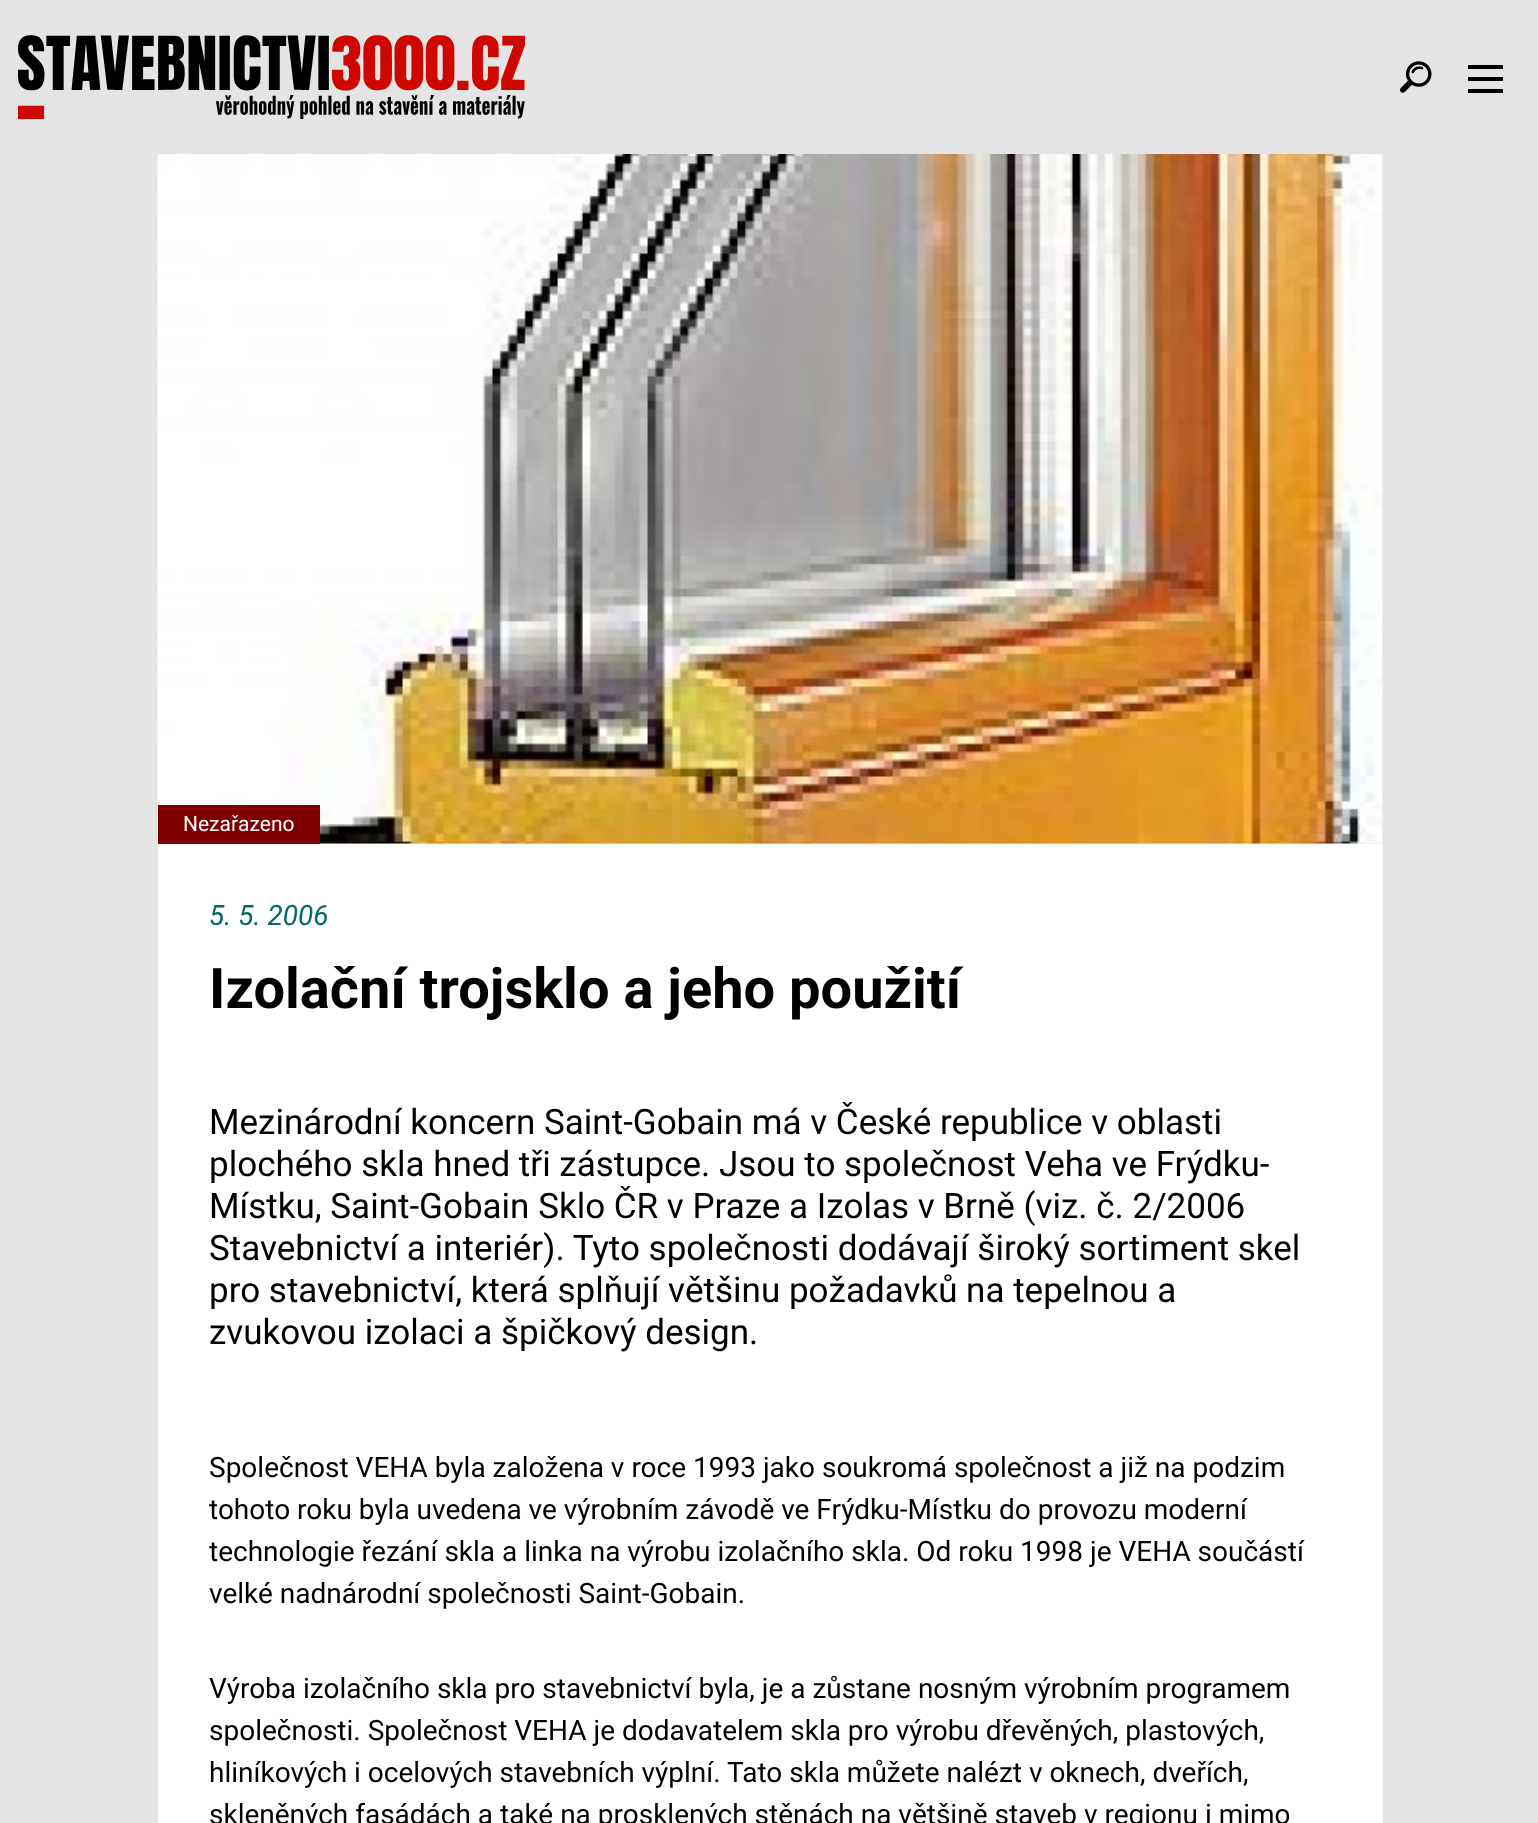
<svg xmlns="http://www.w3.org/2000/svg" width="1538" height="1823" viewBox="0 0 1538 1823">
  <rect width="100%" height="100%" fill="#e4e4e4"/>
  <image x="18" y="35" width="507" height="84" href="img1.png"/>
  <image x="1400" y="61" width="32" height="32" href="img2.png"/>
  <rect x="1468" y="77" width="35" height="4" fill="#000000"/>
  <rect x="1468" y="65" width="35" height="4" fill="#000000"/>
  <rect x="1468" y="89" width="35" height="4" fill="#000000"/>
  <image x="157" y="154" width="1226" height="690" href="img3.png"/>
  <rect x="158" y="805" width="162" height="39" fill="#7f0000"/>
  <text x="183" y="831" font-family="Roboto" font-size="21" fill="#ffffff">Nezařazeno</text>
  <rect x="158" y="844" width="1225" height="979" fill="#ffffff"/>
  <text x="209" y="925" font-family="Roboto" font-size="28" font-style="italic" fill="#076669">5. 5. 2006</text>
  <text x="209" y="1008" font-family="Roboto" font-size="56" font-weight="bold" fill="#000000">Izolační trojsklo a jeho použití</text>
  <text x="209" y="1134" font-family="Roboto" font-size="35" fill="#000000">Mezinárodní koncern Saint-Gobain má v České republice v oblasti</text>
  <text x="209" y="1176" font-family="Roboto" font-size="35" fill="#000000">plochého skla hned tři zástupce. Jsou to společnost Veha ve Frýdku-</text>
  <text x="209" y="1218" font-family="Roboto" font-size="35" fill="#000000">Místku, Saint-Gobain Sklo ČR v Praze a Izolas v Brně (viz. č. 2/2006</text>
  <text x="209" y="1260" font-family="Roboto" font-size="35" fill="#000000">Stavebnictví a interiér). Tyto společnosti dodávají široký sortiment skel</text>
  <text x="209" y="1302" font-family="Roboto" font-size="35" fill="#000000">pro stavebnictví, která splňují většinu požadavků na tepelnou a</text>
  <text x="209" y="1344" font-family="Roboto" font-size="35" fill="#000000">zvukovou izolaci a špičkový design.</text>
  <text x="209" y="1477" font-family="Roboto" font-size="28" fill="#000000">Společnost VEHA byla založena v roce 1993 jako soukromá společnost a již na podzim</text>
  <text x="209" y="1519" font-family="Roboto" font-size="28" fill="#000000">tohoto roku byla uvedena ve výrobním závodě ve Frýdku-Místku do provozu moderní</text>
  <text x="209" y="1561" font-family="Roboto" font-size="28" fill="#000000">technologie řezání skla a linka na výrobu izolačního skla. Od roku 1998 je VEHA součástí</text>
  <text x="209" y="1603" font-family="Roboto" font-size="28" fill="#000000">velké nadnárodní společnosti Saint-Gobain.</text>
  <text x="209" y="1698" font-family="Roboto" font-size="28" fill="#000000">Výroba izolačního skla pro stavebnictví byla, je a zůstane nosným výrobním programem</text>
  <text x="209" y="1740" font-family="Roboto" font-size="28" fill="#000000">společnosti. Společnost VEHA je dodavatelem skla pro výrobu dřevěných, plastových,</text>
  <text x="209" y="1782" font-family="Roboto" font-size="28" fill="#000000">hliníkových i ocelových stavebních výplní. Tato skla můžete nalézt v oknech, dveřích,</text>
  <text x="209" y="1824" font-family="Roboto" font-size="28" fill="#000000">skleněných fasádách a také na prosklených stěnách na většině staveb v regionu i mimo</text>
</svg>
